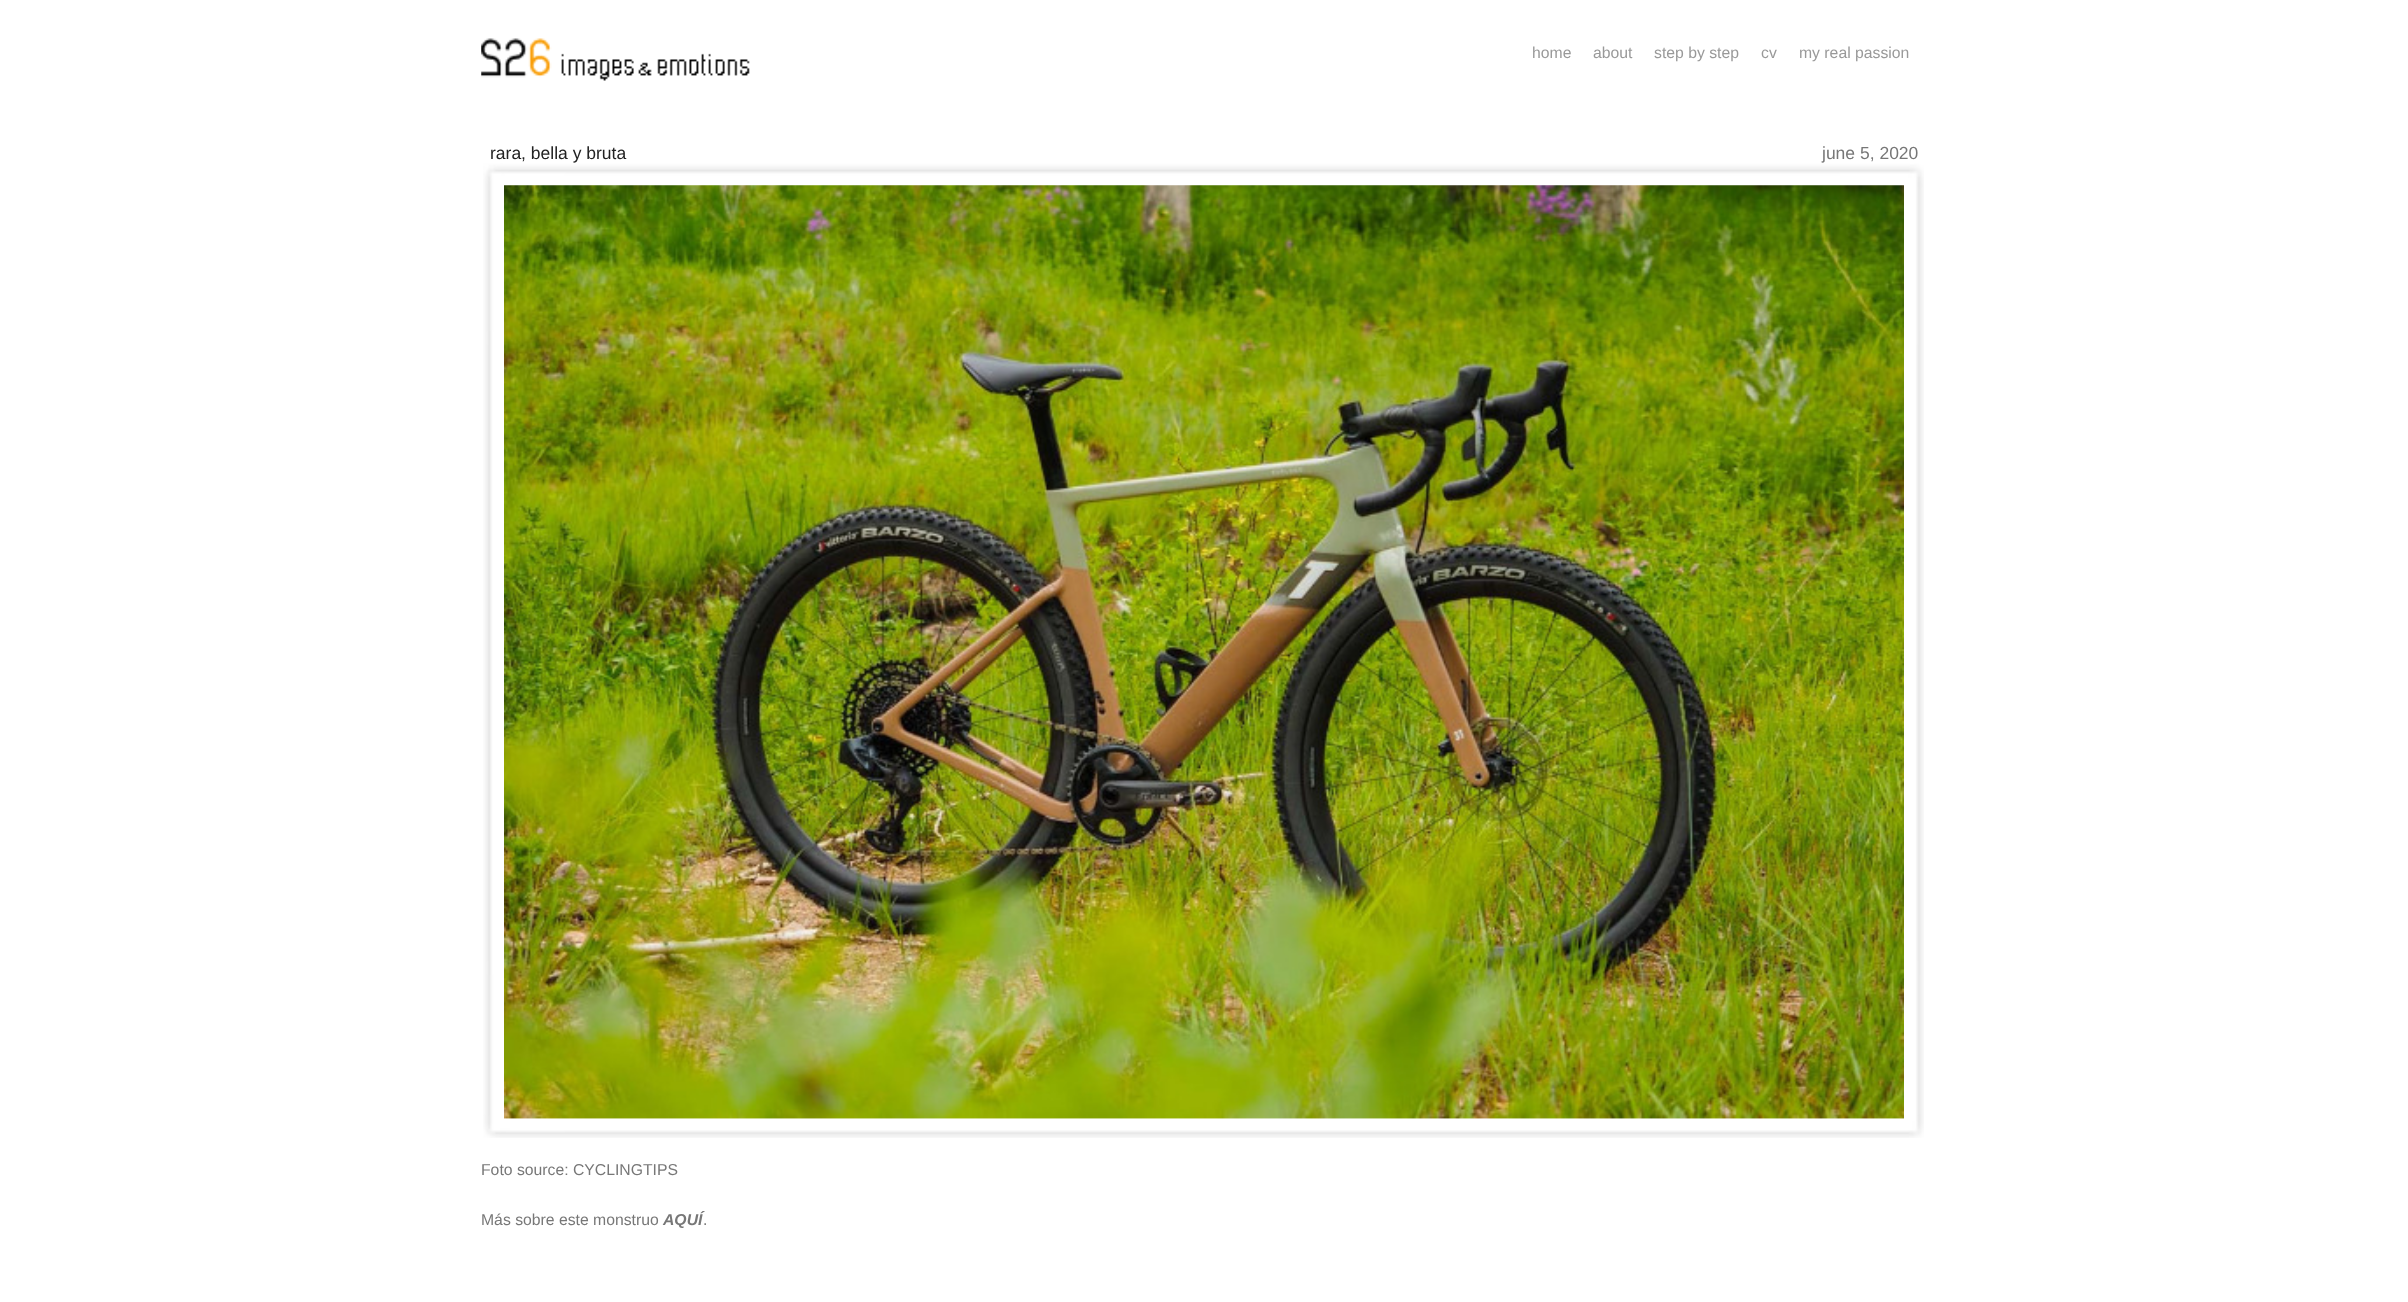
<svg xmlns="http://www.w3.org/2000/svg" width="2408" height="1302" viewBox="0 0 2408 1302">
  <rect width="100%" height="100%" fill="#ffffff"/>
  <image x="481" y="38" width="269" height="43" href="img1.png"/>
  <text x="1532" y="58" font-family="Liberation Sans" font-size="15.75" fill="#999999">home</text>
  <text x="1593" y="58" font-family="Liberation Sans" font-size="15.75" fill="#999999">about</text>
  <text x="1654" y="58" font-family="Liberation Sans" font-size="15.75" fill="#999999">step by step</text>
  <text x="1761" y="58" font-family="Liberation Sans" font-size="15.75" fill="#999999">cv</text>
  <text x="1799" y="58" font-family="Liberation Sans" font-size="15.75" fill="#999999">my real passion</text>
  <text x="490" y="159" font-family="Liberation Sans" font-size="17.5" fill="#222222">rara, bella y bruta</text>
  <text x="1822" y="159" font-family="Liberation Sans" font-size="17.5" fill="#777777">june 5, 2020</text>
  <image x="483" y="162" width="1441" height="976" href="img2.png"/>
  <image x="504" y="185" width="1400" height="934" href="img3.png"/>
  <text x="481" y="1175" font-family="Liberation Sans" font-size="15.75" fill="#777777">Foto source: CYCLINGTIPS</text>
  <text x="481" y="1225" font-family="Liberation Sans" font-size="15.75" fill="#777777">Más sobre este monstruo</text>
  <text x="663" y="1225" font-family="Liberation Sans" font-size="15.75" font-weight="bold" font-style="italic" fill="#777777">AQUÍ</text>
  <text x="703" y="1225" font-family="Liberation Sans" font-size="15.75" fill="#777777">.</text>
</svg>
